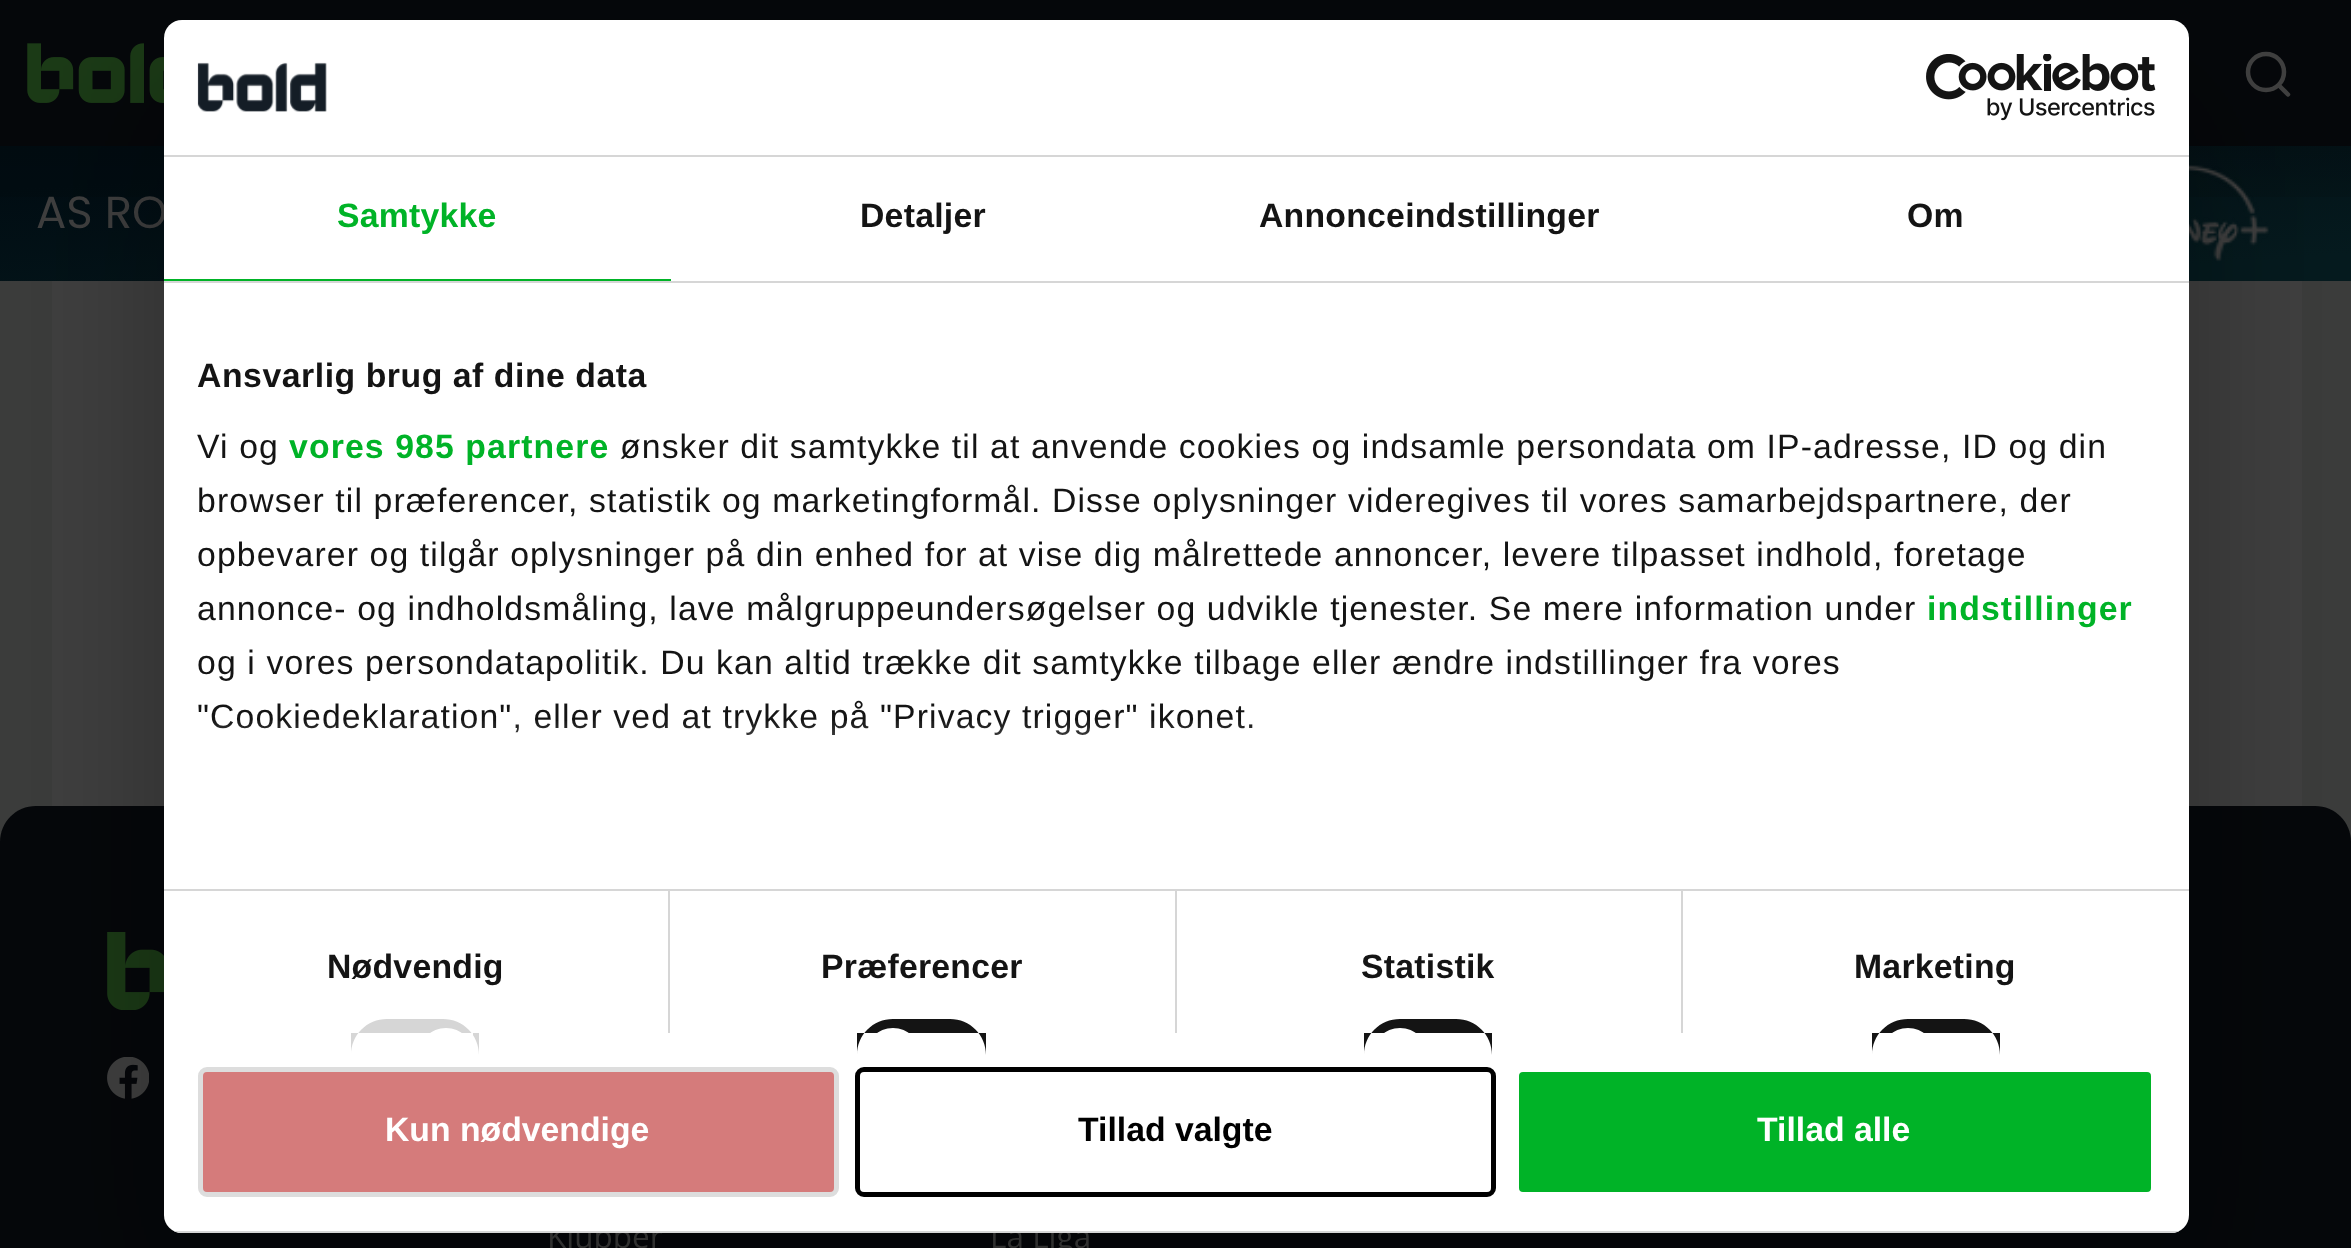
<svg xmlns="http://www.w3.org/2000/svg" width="2351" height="1248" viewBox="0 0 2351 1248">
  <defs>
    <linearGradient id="g1" gradientUnits="userSpaceOnUse" x1="1186" y1="363" x2="1165" y2="65"><stop offset="0.09" stop-color="#051a1e"/><stop offset="0.86" stop-color="#010d13"/></linearGradient>
    <linearGradient id="g2" gradientUnits="userSpaceOnUse" x1="1176" y1="146" x2="1176" y2="281"><stop offset="0.03" stop-color="#000000" stop-opacity="0.15"/><stop offset="1" stop-color="#000000" stop-opacity="0"/></linearGradient>
    <filter id="blur1" x="-50%" y="-200%" width="200%" height="500%"><feGaussianBlur stdDeviation="76.5"/></filter>
    <linearGradient id="g3" gradientUnits="userSpaceOnUse" x1="1162" y1="888" x2="1162" y2="719"><stop offset="0" stop-color="#ffffff"/><stop offset="0.5" stop-color="#ffffff" stop-opacity="0.8"/><stop offset="1" stop-color="#ffffff" stop-opacity="0"/></linearGradient>
    <clipPath id="clip1"><rect x="164" y="20" width="2025" height="1213" rx="18"/></clipPath>
  </defs>
  <rect width="100%" height="100%" fill="#3b3c3b"/>
  <rect x="0" y="0" width="2351" height="146" fill="#05070a"/>
  <image x="27" y="43" width="137" height="60" href="img1.png"/>
  <circle cx="2266" cy="72" r="18" fill="none" stroke="#404040" stroke-width="4.5"/>
  <path d="M2288 94.5L2279 85.5" fill="none" stroke="#404040" stroke-width="4.5" stroke-linecap="round" stroke-linejoin="round"/>
  <rect x="0" y="146" width="2351" height="135" fill="url(#g1)"/>
  <rect x="0" y="146" width="2351" height="51" fill="url(#g2)"/>
  <text x="36" y="228" font-family="Poppins" font-size="45" fill="#3f3f3f">AS RO</text>
  <image x="2189" y="165" width="80" height="97" href="img2.png"/>
  <rect x="52" y="281" width="2250" height="525" fill="#3f3f3f"/>
  <path d="M36 806H2315C2335 806 2351 822 2351 842V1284H0V842C0 822 16 806 36 806Z" fill="#05070a"/>
  <image x="107" y="932" width="57" height="78" href="img3.png"/>
  <image x="107" y="1057" width="42" height="42" href="img4.png"/>
  <text x="547" y="1248" font-family="Open Sans" font-size="31.5" fill="#3f3f3f">Klubber</text>
  <text x="990" y="1248" font-family="Open Sans" font-size="31.5" fill="#3f3f3f">La Liga</text>
  <rect x="164" y="92" width="2025" height="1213" rx="18" fill="#000000" fill-opacity="0.3" filter="url(#blur1)"/>
  <rect x="164" y="20" width="2025" height="1213" rx="18" fill="#ffffff"/>
  <rect x="164" y="155" width="2025" height="2" fill="#d6d6d6"/>
  <image x="197" y="62" width="130" height="50" href="img5.png"/>
  <image x="1926" y="54" width="230" height="67" href="img6.png"/>
  <rect x="164" y="281" width="2025" height="2" fill="#d6d6d6"/>
  <rect x="164" y="279" width="507" height="2" fill="#00b327"/>
  <text x="337" y="227" font-family="Liberation Sans" font-size="33.75" font-weight="bold" letter-spacing="0.25" fill="#00b327">Samtykke</text>
  <text x="860" y="227" font-family="Liberation Sans" font-size="33.75" font-weight="bold" letter-spacing="0.25" fill="#141414">Detaljer</text>
  <text x="1259" y="227" font-family="Liberation Sans" font-size="33.75" font-weight="bold" letter-spacing="0.25" fill="#141414">Annonceindstillinger</text>
  <text x="1907" y="227" font-family="Liberation Sans" font-size="33.75" font-weight="bold" letter-spacing="0.25" fill="#141414">Om</text>
  <rect x="164" y="889" width="2025" height="2" fill="#d6d6d6"/>
  <text x="197" y="387" font-family="Liberation Sans" font-size="33.75" font-weight="bold" letter-spacing="0.55" fill="#141414">Ansvarlig brug af dine data</text>
  <text x="197" y="458" font-family="Liberation Sans" font-size="33.75" letter-spacing="1.12" fill="#141414">Vi og</text>
  <text x="289" y="458" font-family="Liberation Sans" font-size="33.75" font-weight="bold" letter-spacing="1.12" fill="#00b327">vores 985 partnere</text>
  <text x="620" y="458" font-family="Liberation Sans" font-size="33.75" letter-spacing="1.12" fill="#141414">ønsker dit samtykke til at anvende cookies og indsamle persondata om IP-adresse, ID og din</text>
  <text x="197" y="512" font-family="Liberation Sans" font-size="33.75" letter-spacing="1.12" fill="#141414">browser til præferencer, statistik og marketingformål. Disse oplysninger videregives til vores samarbejdspartnere, der</text>
  <text x="197" y="566" font-family="Liberation Sans" font-size="33.75" letter-spacing="1.12" fill="#141414">opbevarer og tilgår oplysninger på din enhed for at vise dig målrettede annoncer, levere tilpasset indhold, foretage</text>
  <text x="197" y="620" font-family="Liberation Sans" font-size="33.75" letter-spacing="1.12" fill="#141414">annonce- og indholdsmåling, lave målgruppeundersøgelser og udvikle tjenester. Se mere information under</text>
  <text x="1927" y="620" font-family="Liberation Sans" font-size="33.75" font-weight="bold" letter-spacing="1.12" fill="#00b327">indstillinger</text>
  <text x="197" y="674" font-family="Liberation Sans" font-size="33.75" letter-spacing="1.12" fill="#141414">og i vores persondatapolitik. Du kan altid trække dit samtykke tilbage eller ændre indstillinger fra vores</text>
  <text x="197" y="728" font-family="Liberation Sans" font-size="33.75" letter-spacing="1.12" fill="#141414">"Cookiedeklaration", eller ved at trykke på "Privacy trigger" ikonet.</text>
  <rect x="213" y="721" width="1040" height="14" fill="url(#g3)"/>
  <rect x="668" y="891" width="2" height="142" fill="#d6d6d6"/>
  <text x="327" y="978" font-family="Liberation Sans" font-size="33.75" font-weight="bold" letter-spacing="0.25" fill="#141414">Nødvendig</text>
  <path d="M387 1019H443C463 1019 479 1035 479 1055V1033H351V1055C351 1035 367 1019 387 1019Z" fill="#d6d6d6"/>
  <path d="M446 1028C461 1028 473 1040 473 1055V1033H419V1055C419 1040 431 1028 446 1028Z" fill="#ffffff"/>
  <rect x="1175" y="891" width="2" height="142" fill="#d6d6d6"/>
  <text x="821" y="978" font-family="Liberation Sans" font-size="33.75" font-weight="bold" letter-spacing="0.25" fill="#141414">Præferencer</text>
  <path d="M893 1019H950C970 1019 986 1035 986 1055V1033H857V1055C857 1035 873 1019 893 1019Z" fill="#141414"/>
  <path d="M893 1028C908 1028 920 1040 920 1055V1033H866V1055C866 1040 878 1028 893 1028Z" fill="#ffffff"/>
  <rect x="1681" y="891" width="2" height="142" fill="#d6d6d6"/>
  <text x="1361" y="978" font-family="Liberation Sans" font-size="33.75" font-weight="bold" letter-spacing="0.25" fill="#141414">Statistik</text>
  <path d="M1400 1019H1456C1476 1019 1492 1035 1492 1055V1033H1364V1055C1364 1035 1380 1019 1400 1019Z" fill="#141414"/>
  <path d="M1400 1028C1415 1028 1427 1040 1427 1055V1033H1373V1055C1373 1040 1385 1028 1400 1028Z" fill="#ffffff"/>
  <text x="1854" y="978" font-family="Liberation Sans" font-size="33.75" font-weight="bold" letter-spacing="0.25" fill="#141414">Marketing</text>
  <path d="M1908 1019H1964C1984 1019 2000 1035 2000 1055V1033H1872V1055C1872 1035 1888 1019 1908 1019Z" fill="#141414"/>
  <path d="M1908 1028C1923 1028 1935 1040 1935 1055V1033H1881V1055C1881 1040 1893 1028 1908 1028Z" fill="#ffffff"/>
  <g clip-path="url(#clip1)">
    <rect x="174" y="1231" width="2005" height="2" fill="#d6d6d6"/>
  </g>
  <rect x="200.5" y="1069.5" width="636" height="125" rx="6.5" fill="#d57b7b" stroke="#dddddd" stroke-width="5"/>
  <text x="385" y="1141" font-family="Liberation Sans" font-size="33.75" font-weight="bold" fill="#ffffff">Kun nødvendige</text>
  <rect x="857.5" y="1069.5" width="636" height="125" rx="6.5" fill="none" stroke="#000000" stroke-width="5"/>
  <text x="1078" y="1141" font-family="Liberation Sans" font-size="33.75" font-weight="bold" fill="#000000">Tillad valgte</text>
  <rect x="1516.5" y="1069.5" width="637" height="125" rx="6.5" fill="#00b327" stroke="#ffffff" stroke-width="5"/>
  <text x="1757" y="1141" font-family="Liberation Sans" font-size="33.75" font-weight="bold" fill="#ffffff">Tillad alle</text>
</svg>
